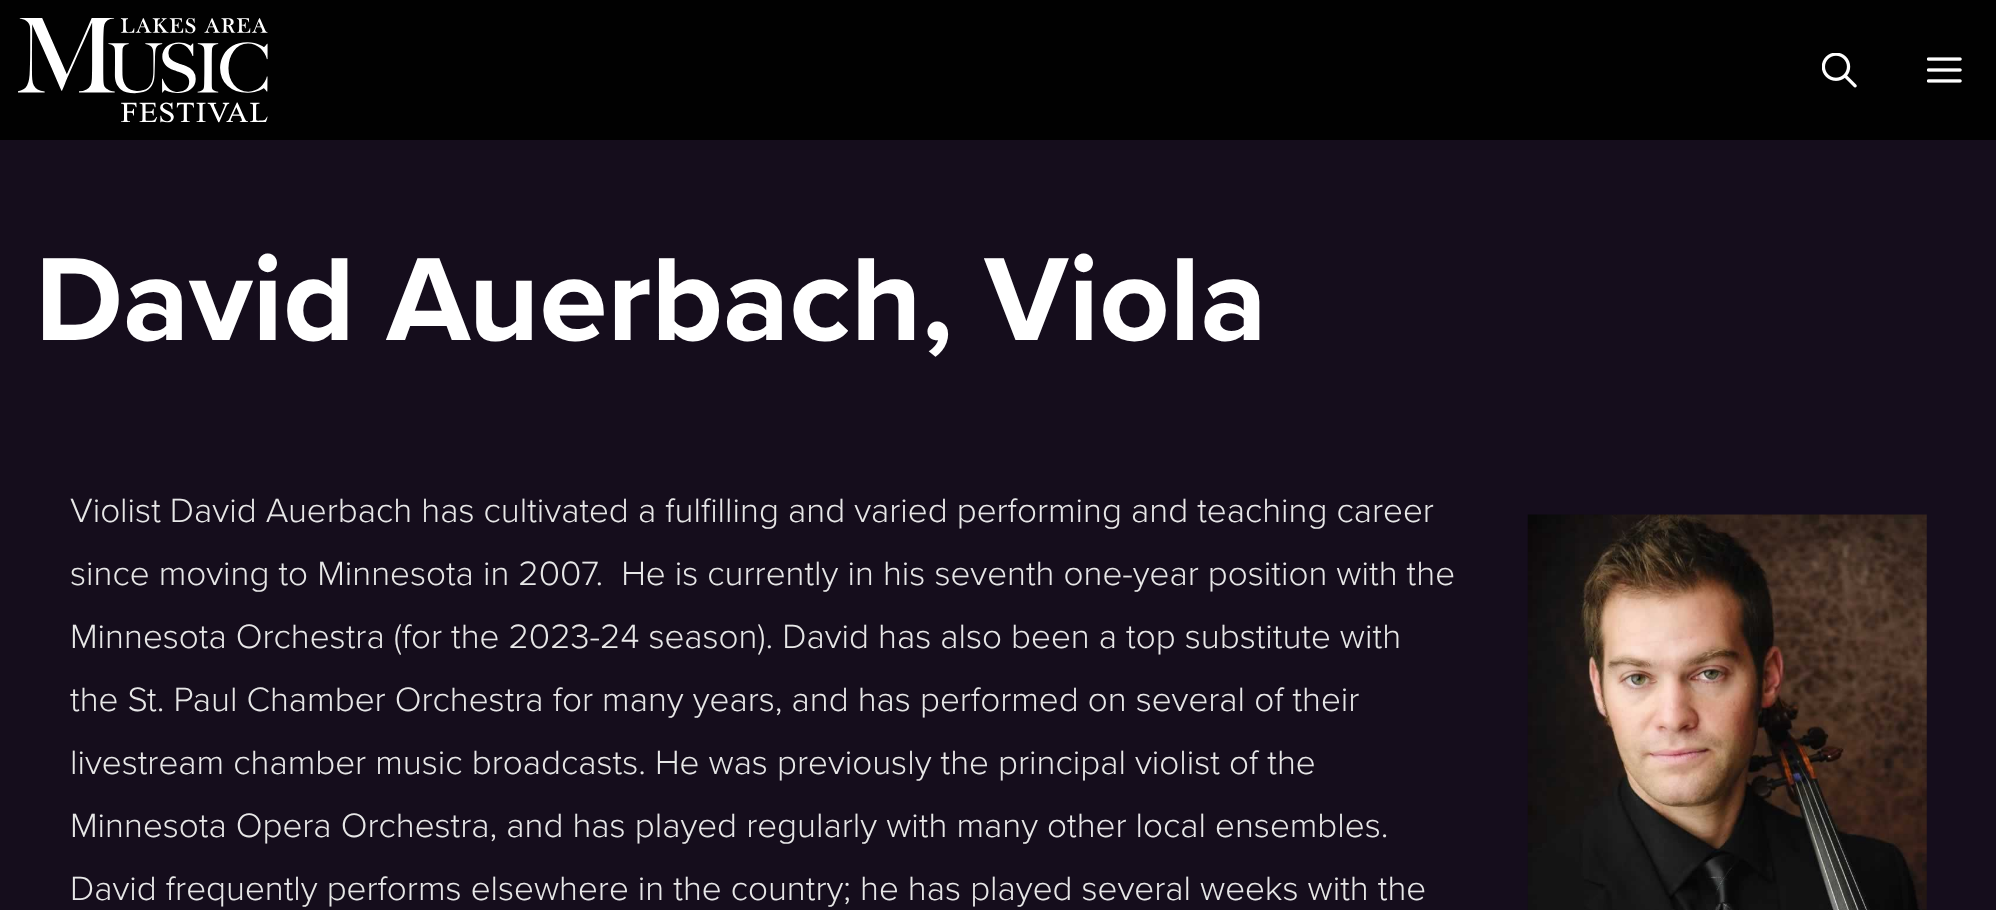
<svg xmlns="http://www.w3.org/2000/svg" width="1996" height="910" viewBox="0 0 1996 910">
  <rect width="100%" height="100%" fill="#150d1c"/>
  <rect x="0" y="0" width="1996" height="140" fill="#010101"/>
  <image x="18" y="18" width="250" height="105" href="img1.png"/>
  <image x="1822" y="53" width="35" height="35" href="img2.png"/>
  <image x="1927" y="57" width="35" height="26" href="img3.png"/>
  <text x="35" y="340" font-family="Proxima Nova" font-size="122.5" font-weight="bold" fill="#ffffff">David Auerbach, Viola</text>
  <text x="70" y="522" font-family="Proxima Nova" font-size="35" font-weight="300" fill="#e7e7e7">Violist David Auerbach has cultivated a fulfilling and varied performing and teaching career</text>
  <text x="70" y="585" font-family="Proxima Nova" font-size="35" font-weight="300" fill="#e7e7e7" xml:space="preserve">since moving to Minnesota in 2007.  He is currently in his seventh one-year position with the</text>
  <text x="70" y="648" font-family="Proxima Nova" font-size="35" font-weight="300" fill="#e7e7e7">Minnesota Orchestra (for the 2023-24 season). David has also been a top substitute with</text>
  <text x="70" y="711" font-family="Proxima Nova" font-size="35" font-weight="300" fill="#e7e7e7">the St. Paul Chamber Orchestra for many years, and has performed on several of their</text>
  <text x="70" y="774" font-family="Proxima Nova" font-size="35" font-weight="300" fill="#e7e7e7">livestream chamber music broadcasts. He was previously the principal violist of the</text>
  <text x="70" y="837" font-family="Proxima Nova" font-size="35" font-weight="300" fill="#e7e7e7">Minnesota Opera Orchestra, and has played regularly with many other local ensembles.</text>
  <text x="70" y="900" font-family="Proxima Nova" font-size="35" font-weight="300" fill="#e7e7e7">David frequently performs elsewhere in the country; he has played several weeks with the</text>
  <image x="1527" y="514" width="400" height="396" href="img4.png"/>
</svg>
